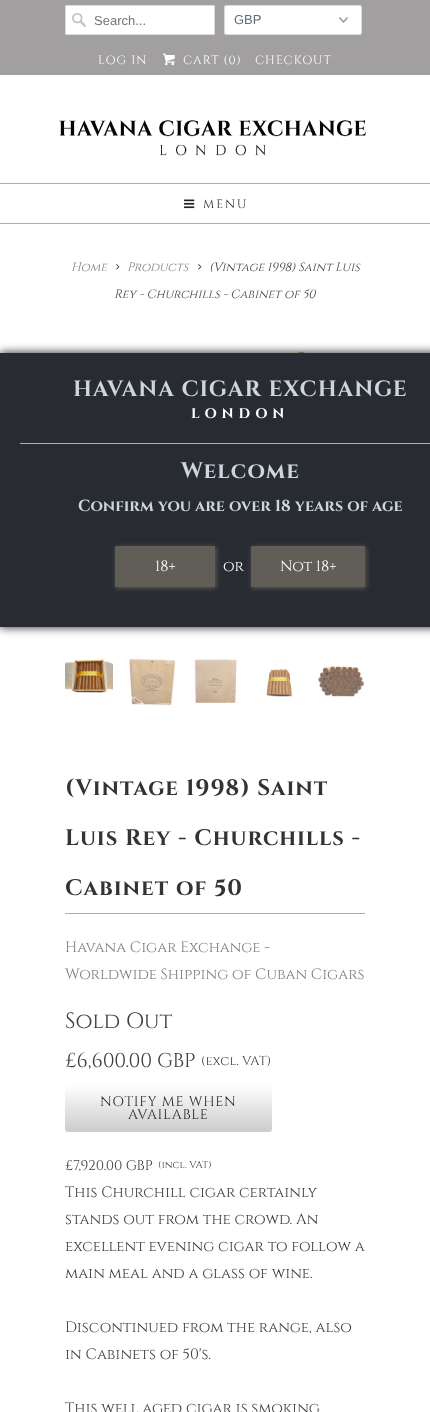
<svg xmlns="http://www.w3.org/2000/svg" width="430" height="1412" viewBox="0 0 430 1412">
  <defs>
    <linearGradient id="g1" gradientUnits="userSpaceOnUse" x1="169" y1="1084" x2="169" y2="1132"><stop offset="0" stop-color="#ffffff"/><stop offset="1" stop-color="#cccccc"/></linearGradient>
    <filter id="blur1" x="-50%" y="-200%" width="200%" height="500%"><feGaussianBlur stdDeviation="5"/></filter>
    <filter id="blur2" x="-50%" y="-200%" width="200%" height="500%"><feGaussianBlur stdDeviation="2.5"/></filter>
  </defs>
  <rect width="100%" height="100%" fill="#ffffff"/>
  <rect x="0" y="0" width="430" height="75" fill="#a19f9f"/>
  <rect x="65" y="5" width="150" height="30" rx="2" fill="#ffffff"/>
  <image x="72" y="13" width="14" height="14" href="img1.png"/>
  <rect x="65.5" y="5.5" width="149" height="29" rx="1.5" fill="none" stroke="#dfdfdf"/>
  <text x="94" y="25" font-family="Liberation Sans" font-size="13" fill="#757575">Search...</text>
  <rect x="224" y="5" width="138" height="30" rx="3" fill="#ffffff"/>
  <image x="339" y="17" width="9" height="6" href="img2.png"/>
  <rect x="224.5" y="5.5" width="137" height="29" rx="2.5" fill="none" stroke="#d9dbdc"/>
  <text x="234" y="24" font-family="Liberation Sans" font-size="13" fill="#5f6a7d">GBP</text>
  <text x="98" y="64" font-family="Cinzel" font-size="12" letter-spacing="1" fill="#ffffff">LOG IN</text>
  <image x="163" y="53" width="12" height="13" href="img3.png"/>
  <text x="183" y="64" font-family="Cinzel" font-size="12" letter-spacing="1" fill="#ffffff">CART (0)</text>
  <text x="255" y="64" font-family="Cinzel" font-size="12" letter-spacing="1" fill="#ffffff">CHECKOUT</text>
  <image x="59" y="120" width="308" height="36" href="img4.png"/>
  <rect x="0" y="183" width="430" height="1" fill="#aeaeb0"/>
  <rect x="0" y="223" width="430" height="1" fill="#aeaeb0"/>
  <image x="184" y="199" width="11" height="10" href="img5.png"/>
  <text x="203" y="208" font-family="Cinzel" font-size="12" letter-spacing="2" fill="#1f2124">MENU</text>
  <text x="71" y="271" font-family="Cinzel" font-size="12" font-style="italic" fill="#808080">Home</text>
  <image x="116" y="264" width="4" height="6" href="img6.png"/>
  <text x="127" y="271" font-family="Cinzel" font-size="12" font-style="italic" fill="#808080">Products</text>
  <image x="198" y="264" width="4" height="6" href="img6.png"/>
  <text x="209" y="271" font-family="Cinzel" font-size="12" font-style="italic" fill="#404040">(Vintage 1998) Saint Luis</text>
  <text x="114" y="298" font-family="Cinzel" font-size="12" font-style="italic" fill="#404040">Rey - Churchills - Cabinet of 50</text>
  <image x="65" y="351" width="300" height="2" href="img7.png"/>
  <image x="65" y="659" width="48" height="34" href="img8.png"/>
  <image x="129" y="658" width="47" height="48" href="img9.png"/>
  <image x="194" y="659" width="43" height="44" href="img10.png"/>
  <image x="266" y="669" width="27" height="28" href="img11.png"/>
  <image x="318" y="666" width="47" height="31" href="img12.png"/>
  <rect x="65" y="913" width="300" height="1" fill="#aeaeb0"/>
  <text x="65" y="795" font-family="Cinzel" font-size="22.5" font-weight="bold" letter-spacing="1" fill="#333333">(Vintage 1998) Saint</text>
  <text x="65" y="845" font-family="Cinzel" font-size="22.5" font-weight="bold" letter-spacing="1" fill="#333333">Luis Rey - Churchills -</text>
  <text x="65" y="895" font-family="Cinzel" font-size="22.5" font-weight="bold" letter-spacing="1" fill="#333333">Cabinet of 50</text>
  <text x="65" y="952" font-family="Cinzel" font-size="15" fill="#808080">Havana Cigar Exchange -</text>
  <text x="65" y="979" font-family="Cinzel" font-size="15" fill="#808080">Worldwide Shipping of Cuban Cigars</text>
  <text x="65" y="1028" font-family="Cinzel" font-size="22" fill="#404040">Sold Out</text>
  <text x="65" y="1067" font-family="Cinzel" font-size="20" fill="#404040">£6,600.00 GBP</text>
  <text x="201" y="1065" font-family="Cinzel" font-size="13" fill="#404040">(excl. VAT)</text>
  <rect x="65" y="1084" width="207" height="48" rx="3" fill="url(#g1)"/>
  <text x="100" y="1106" font-family="Cinzel" font-size="14" letter-spacing="0.75" fill="#1f2124">NOTIFY ME WHEN</text>
  <text x="128" y="1119" font-family="Cinzel" font-size="14" letter-spacing="0.75" fill="#1f2124">AVAILABLE</text>
  <text x="65" y="1170" font-family="Cinzel" font-size="14" fill="#404040">£7,920.00 GBP</text>
  <text x="158" y="1168" font-family="Cinzel" font-size="10" fill="#404040">(incl. VAT)</text>
  <text x="65" y="1197" font-family="Cinzel" font-size="15" fill="#404040">This Churchill cigar certainly</text>
  <text x="65" y="1224" font-family="Cinzel" font-size="15" fill="#404040">stands out from the crowd. An</text>
  <text x="65" y="1251" font-family="Cinzel" font-size="15" fill="#404040">excellent evening cigar to follow a</text>
  <text x="65" y="1278" font-family="Cinzel" font-size="15" fill="#404040">main meal and a glass of wine.</text>
  <text x="65" y="1332" font-family="Cinzel" font-size="15" fill="#404040">Discontinued from the range, also</text>
  <text x="65" y="1359" font-family="Cinzel" font-size="15" fill="#404040">in Cabinets of 50's.</text>
  <text x="65" y="1413" font-family="Cinzel" font-size="15" fill="#404040">This well aged cigar is smoking</text>
  <rect x="0" y="353" width="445" height="274" fill="#000000" fill-opacity="0.5" filter="url(#blur1)"/>
  <rect x="0" y="353" width="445" height="274" fill="#000000" fill-opacity="0.5" filter="url(#blur1)"/>
  <rect x="0" y="353" width="430" height="274" fill="#282b32"/>
  <text x="73" y="396" font-family="Cinzel" font-size="22" font-weight="bold" letter-spacing="1" fill="#cdd6dd">HAVANA CIGAR EXCHANGE</text>
  <rect x="20" y="443" width="410" height="1" fill="#aeaeb0"/>
  <text x="191" y="418" font-family="Cinzel" font-size="14" font-weight="bold" letter-spacing="5" fill="#ffffff">LONDON</text>
  <text x="181" y="478" font-family="Cinzel" font-size="22.5" font-weight="bold" letter-spacing="1" fill="#cdd6dd">Welcome</text>
  <text x="78" y="511" font-family="Cinzel" font-size="16" font-weight="bold" fill="#cdd6dd">Confirm you are over 18 years of age</text>
  <rect x="116" y="547" width="100" height="41" fill="#615e57" filter="url(#blur2)"/>
  <rect x="115" y="546" width="100" height="41" fill="#615e57"/>
  <text x="155" y="571" font-family="Cinzel" font-size="15" fill="#ffffff">18+</text>
  <text x="223" y="571" font-family="Cinzel" font-size="15" fill="#ffffff">or</text>
  <rect x="252" y="547" width="114" height="41" fill="#615e57" filter="url(#blur2)"/>
  <rect x="251" y="546" width="114" height="41" fill="#615e57"/>
  <text x="280" y="571" font-family="Cinzel" font-size="15" fill="#ffffff">Not 18+</text>
</svg>
